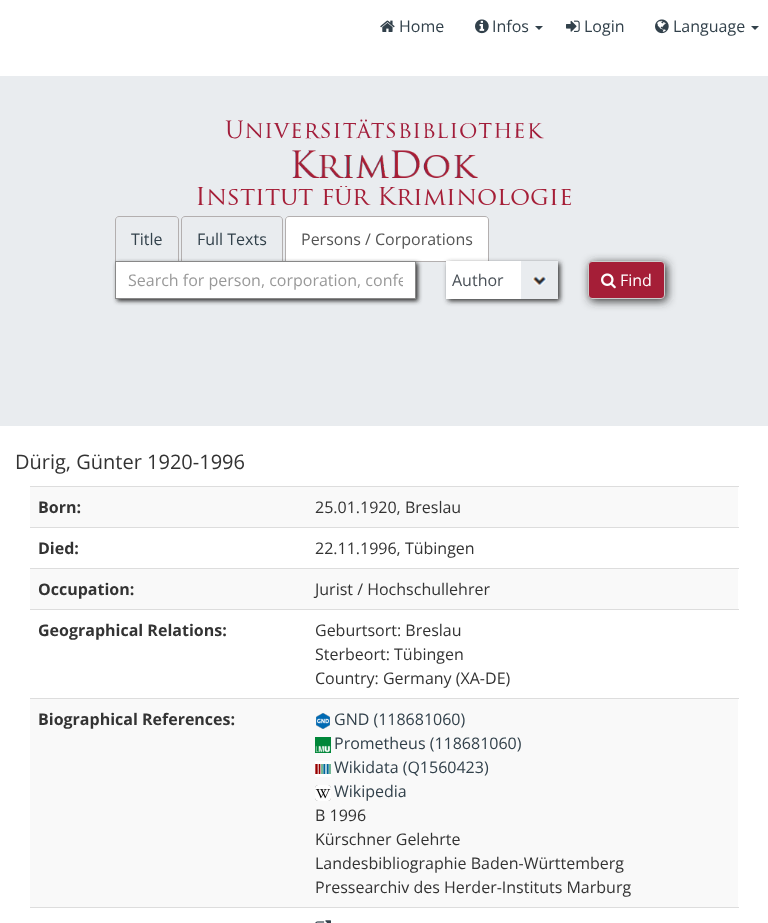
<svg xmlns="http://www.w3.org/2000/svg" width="768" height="923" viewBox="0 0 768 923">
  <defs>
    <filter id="blur1" x="-50%" y="-200%" width="200%" height="500%"><feGaussianBlur stdDeviation="2"/></filter>
    <clipPath id="clip1"><rect x="128" y="269" width="275" height="22"/></clipPath>
    <filter id="blur2" x="-50%" y="-200%" width="200%" height="500%"><feGaussianBlur stdDeviation="2.5"/></filter>
    <filter id="blur3" x="-50%" y="-200%" width="200%" height="500%"><feGaussianBlur stdDeviation="5"/></filter>
  </defs>
  <rect width="100%" height="100%" fill="#ffffff"/>
  <image x="380" y="20" width="15" height="12" href="img1.png"/>
  <text x="399" y="32" font-family="Open Sans" font-size="16" fill="#32414b">Home</text>
  <image x="475" y="19" width="14" height="15" href="img2.png"/>
  <text x="492" y="32" font-family="Open Sans" font-size="16" fill="#32414b">Infos</text>
  <path d="M535 26H543L539 30Z" fill="#32414b"/>
  <image x="566" y="20" width="14" height="12" href="img3.png"/>
  <text x="584" y="32" font-family="Open Sans" font-size="16" fill="#32414b">Login</text>
  <image x="655" y="19" width="14" height="15" href="img4.png"/>
  <text x="673" y="32" font-family="Open Sans" font-size="16" fill="#32414b">Language</text>
  <path d="M751 26H759L755 30Z" fill="#32414b"/>
  <rect x="0" y="76" width="768" height="350" fill="#e9ecef"/>
  <image x="225" y="119" width="319" height="20" href="img5.png"/>
  <image x="292" y="150" width="186" height="28" href="img6.png"/>
  <image x="197" y="186" width="375" height="19" href="img7.png"/>
  <path d="M119 216.5H175C177 216.5 178.5 218 178.5 220V261.5H115.5V220C115.5 218 117 216.5 119 216.5Z" fill="none" stroke="#b3afaf"/>
  <text x="131" y="245" font-family="Open Sans" font-size="16" fill="#32414b">Title</text>
  <path d="M185 216.5H279C281 216.5 282.5 218 282.5 220V261.5H181.5V220C181.5 218 183 216.5 185 216.5Z" fill="none" stroke="#b3afaf"/>
  <text x="197" y="245" font-family="Open Sans" font-size="16" fill="#32414b">Full Texts</text>
  <path d="M289 216.5H485C487 216.5 488.5 218 488.5 220V261.5H285.5V220C285.5 218 287 216.5 289 216.5Z" fill="#ffffff" stroke="#b3afaf"/>
  <text x="301" y="245" font-family="Open Sans" font-size="16" fill="#555555">Persons / Corporations</text>
  <rect x="117" y="263" width="301" height="38" fill="#323232" filter="url(#blur1)"/>
  <rect x="115.5" y="261.5" width="300" height="37" fill="#ffffff" stroke="#888888"/>
  <g clip-path="url(#clip1)">
    <text x="128" y="286" font-family="Open Sans" font-size="16" fill="#999999">Search for person, corporation, confe</text>
  </g>
  <rect x="448" y="263" width="112" height="38" fill="#323232" filter="url(#blur2)"/>
  <rect x="446" y="261" width="75" height="38" fill="#ffffff"/>
  <image x="521" y="261" width="37" height="38" href="img8.png"/>
  <text x="452" y="286" font-family="Open Sans" font-size="16" fill="#495057">Author</text>
  <rect x="590" y="263" width="77" height="38" rx="4" fill="#323232" filter="url(#blur3)"/>
  <rect x="588.5" y="261.5" width="76" height="37" rx="3.5" fill="#a51e37" stroke="#cccccc"/>
  <image x="601" y="273" width="15" height="16" href="img9.png"/>
  <text x="620" y="286" font-family="Open Sans" font-size="16" fill="#ffffff">Find</text>
  <text x="15" y="469" font-family="Open Sans" font-size="20" fill="#333333">Dürig, Günter 1920-1996</text>
  <rect x="30" y="487" width="708" height="40" fill="#f9f9f9"/>
  <text x="38" y="513" font-family="Open Sans" font-size="16" font-weight="bold" fill="#333333">Born:</text>
  <rect x="30" y="486" width="709" height="1" fill="#dddddd"/>
  <text x="315" y="513" font-family="Open Sans" font-size="16" fill="#333333">25.01.1920, Breslau</text>
  <text x="38" y="554" font-family="Open Sans" font-size="16" font-weight="bold" fill="#333333">Died:</text>
  <rect x="30" y="527" width="709" height="1" fill="#dddddd"/>
  <text x="315" y="554" font-family="Open Sans" font-size="16" fill="#333333">22.11.1996, Tübingen</text>
  <rect x="30" y="569" width="708" height="40" fill="#f9f9f9"/>
  <text x="38" y="595" font-family="Open Sans" font-size="16" font-weight="bold" fill="#333333">Occupation:</text>
  <rect x="30" y="568" width="709" height="1" fill="#dddddd"/>
  <text x="315" y="595" font-family="Open Sans" font-size="16" fill="#333333">Jurist / Hochschullehrer</text>
  <text x="38" y="636" font-family="Open Sans" font-size="16" font-weight="bold" fill="#333333">Geographical Relations:</text>
  <rect x="30" y="609" width="709" height="1" fill="#dddddd"/>
  <text x="315" y="636" font-family="Open Sans" font-size="16" fill="#333333">Geburtsort: Breslau</text>
  <text x="315" y="660" font-family="Open Sans" font-size="16" fill="#333333">Sterbeort: Tübingen</text>
  <text x="315" y="684" font-family="Open Sans" font-size="16" fill="#333333">Country: Germany (XA-DE)</text>
  <rect x="30" y="699" width="708" height="208" fill="#f9f9f9"/>
  <text x="38" y="725" font-family="Open Sans" font-size="16" font-weight="bold" fill="#333333">Biographical References:</text>
  <rect x="30" y="698" width="709" height="1" fill="#dddddd"/>
  <image x="316" y="713" width="14" height="16" href="img10.png"/>
  <text x="334" y="725" font-family="Open Sans" font-size="16" fill="#32414b">GND (118681060)</text>
  <image x="315" y="737" width="16" height="16" href="img11.png"/>
  <text x="334" y="749" font-family="Open Sans" font-size="16" fill="#32414b">Prometheus (118681060)</text>
  <image x="315" y="761" width="16" height="16" href="img12.png"/>
  <text x="334" y="773" font-family="Open Sans" font-size="16" fill="#32414b">Wikidata (Q1560423)</text>
  <image x="315" y="785" width="16" height="16" href="img13.png"/>
  <text x="334" y="797" font-family="Open Sans" font-size="16" fill="#32414b">Wikipedia</text>
  <text x="315" y="821" font-family="Open Sans" font-size="16" fill="#333333">B 1996</text>
  <text x="315" y="845" font-family="Open Sans" font-size="16" fill="#333333">Kürschner Gelehrte</text>
  <text x="315" y="869" font-family="Open Sans" font-size="16" fill="#333333">Landesbibliographie Baden-Württemberg</text>
  <text x="315" y="893" font-family="Open Sans" font-size="16" fill="#333333">Pressearchiv des Herder-Instituts Marburg</text>
  <rect x="30" y="907" width="709" height="1" fill="#dddddd"/>
  <image x="315" y="920" width="16" height="3" href="img14.png"/>
</svg>
